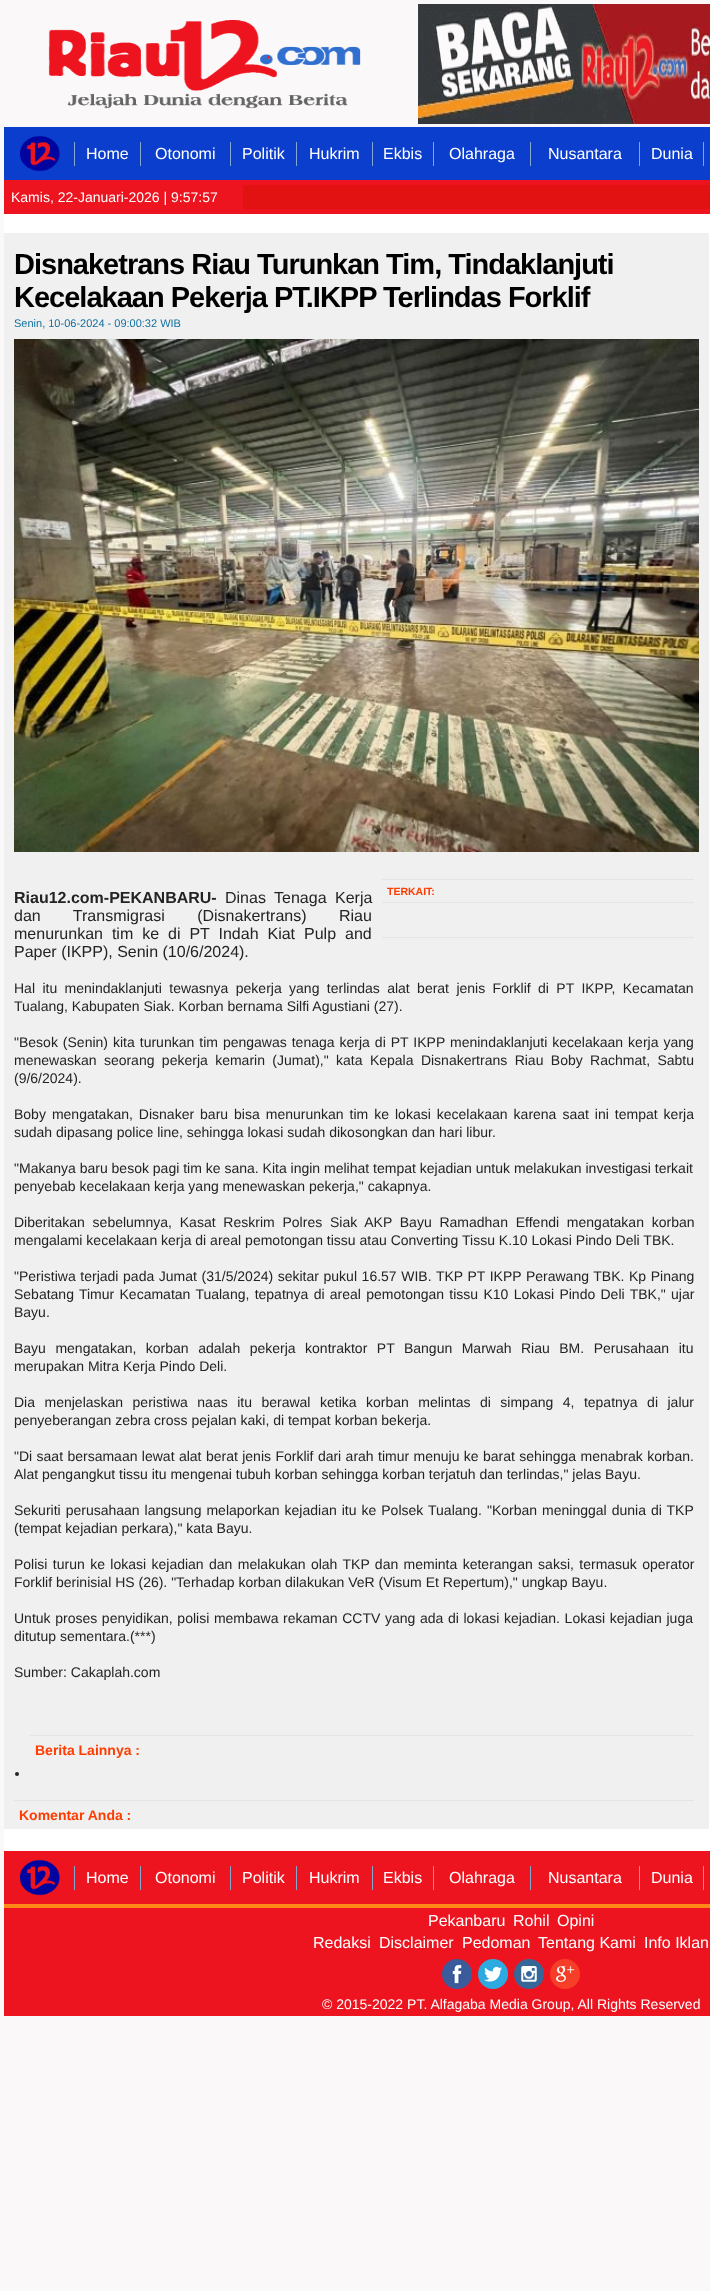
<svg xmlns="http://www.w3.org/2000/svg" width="710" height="2291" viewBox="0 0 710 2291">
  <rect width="100%" height="100%" fill="#faf8f8"/>
  <image x="48" y="20" width="313" height="89" href="img1.png"/>
  <image x="418" y="4" width="292" height="120" href="img2.png"/>
  <rect x="4" y="127" width="706" height="53" fill="#0b3ecd"/>
  <image x="20" y="136" width="40" height="36" href="img3.png"/>
  <rect x="74" y="142" width="1" height="24" fill="#85a8d1"/>
  <text x="86" y="159" font-family="Liberation Sans" font-size="16" fill="#ffffff">Home</text>
  <rect x="140" y="142" width="1" height="24" fill="#85a8d1"/>
  <text x="155" y="159" font-family="Liberation Sans" font-size="16" fill="#ffffff">Otonomi</text>
  <rect x="230" y="142" width="1" height="24" fill="#85a8d1"/>
  <text x="242" y="159" font-family="Liberation Sans" font-size="16" fill="#ffffff">Politik</text>
  <rect x="296" y="142" width="1" height="24" fill="#85a8d1"/>
  <text x="309" y="159" font-family="Liberation Sans" font-size="16" fill="#ffffff">Hukrim</text>
  <rect x="372" y="142" width="1" height="24" fill="#85a8d1"/>
  <text x="383" y="159" font-family="Liberation Sans" font-size="16" fill="#ffffff">Ekbis</text>
  <rect x="433" y="142" width="1" height="24" fill="#85a8d1"/>
  <text x="449" y="159" font-family="Liberation Sans" font-size="16" fill="#ffffff">Olahraga</text>
  <rect x="530" y="142" width="1" height="24" fill="#85a8d1"/>
  <text x="548" y="159" font-family="Liberation Sans" font-size="16" fill="#ffffff">Nusantara</text>
  <rect x="639" y="142" width="1" height="24" fill="#85a8d1"/>
  <text x="651" y="159" font-family="Liberation Sans" font-size="16" fill="#ffffff">Dunia</text>
  <rect x="703" y="142" width="1" height="24" fill="#85a8d1"/>
  <rect x="4" y="180" width="706" height="34" fill="#ee141f"/>
  <text x="11" y="202" font-family="Liberation Sans" font-size="14" fill="#ffffff">Kamis, 22-Januari-2026 | 9:57:57</text>
  <rect x="243" y="185" width="467" height="24" fill="#e21213"/>
  <rect x="4" y="214" width="706" height="1637" fill="#ffffff"/>
  <rect x="4" y="233" width="705" height="1596" fill="#f0f0f0"/>
  <text x="14" y="274" font-family="Liberation Sans" font-size="29" font-weight="bold" letter-spacing="-1" fill="#000000">Disnaketrans Riau Turunkan Tim, Tindaklanjuti</text>
  <text x="14" y="307" font-family="Liberation Sans" font-size="29" font-weight="bold" letter-spacing="-1" fill="#000000">Kecelakaan Pekerja PT.IKPP Terlindas Forklif</text>
  <text x="14" y="327" font-family="Liberation Sans" font-size="11" fill="#1170a0">Senin, 10-06-2024 - 09:00:32 WIB</text>
  <image x="14" y="339" width="685" height="513" href="img4.png"/>
  <rect x="382" y="879" width="312" height="1" fill="#e5e5e5"/>
  <text x="387" y="895" font-family="Liberation Sans" font-size="10.5" font-weight="bold" fill="#ff3c00">TERKAIT:</text>
  <rect x="382" y="902" width="312" height="1" fill="#e5e5e5"/>
  <rect x="382" y="937" width="312" height="1" fill="#e5e5e5"/>
  <text x="14" y="903" font-family="Liberation Sans" font-size="16" font-weight="bold" fill="#232323">Riau12.com-PEKANBARU-</text>
  <text x="225" y="903" word-spacing="4" font-family="Liberation Sans" font-size="16" fill="#232323">Dinas Tenaga Kerja</text>
  <text x="14" y="921" word-spacing="28" font-family="Liberation Sans" font-size="16" fill="#232323">dan Transmigrasi (Disnakertrans) Riau</text>
  <text x="14" y="939" word-spacing="4.5" font-family="Liberation Sans" font-size="16" fill="#232323">menurunkan tim ke di PT Indah Kiat Pulp and</text>
  <text x="14" y="957" font-family="Liberation Sans" font-size="16" fill="#232323">Paper (IKPP), Senin (10/6/2024).</text>
  <text x="14" y="993" word-spacing="3.5" font-family="Liberation Sans" font-size="14" fill="#232323">Hal itu menindaklanjuti tewasnya pekerja yang terlindas alat berat jenis Forklif di PT IKPP, Kecamatan</text>
  <text x="14" y="1011" font-family="Liberation Sans" font-size="14" fill="#232323">Tualang, Kabupaten Siak. Korban bernama Silfi Agustiani (27).</text>
  <text x="14" y="1047" word-spacing="1.1" font-family="Liberation Sans" font-size="14" fill="#232323">"Besok (Senin) kita turunkan tim pengawas tenaga kerja di PT IKPP menindaklanjuti kecelakaan kerja yang</text>
  <text x="14" y="1065" word-spacing="3.5" font-family="Liberation Sans" font-size="14" fill="#232323">menewaskan seorang pekerja kemarin (Jumat)," kata Kepala Disnakertrans Riau Boby Rachmat, Sabtu</text>
  <text x="14" y="1083" font-family="Liberation Sans" font-size="14" fill="#232323">(9/6/2024).</text>
  <text x="14" y="1119" word-spacing="2.1" font-family="Liberation Sans" font-size="14" fill="#232323">Boby mengatakan, Disnaker baru bisa menurunkan tim ke lokasi kecelakaan karena saat ini tempat kerja</text>
  <text x="14" y="1137" font-family="Liberation Sans" font-size="14" fill="#232323">sudah dipasang police line, sehingga lokasi sudah dikosongkan dan hari libur.</text>
  <text x="14" y="1173" font-family="Liberation Sans" font-size="14" fill="#232323">"Makanya baru besok pagi tim ke sana. Kita ingin melihat tempat kejadian untuk melakukan investigasi terkait</text>
  <text x="14" y="1191" font-family="Liberation Sans" font-size="14" fill="#232323">penyebab kecelakaan kerja yang menewaskan pekerja," cakapnya.</text>
  <text x="14" y="1227" word-spacing="3.9" font-family="Liberation Sans" font-size="14" fill="#232323">Diberitakan sebelumnya, Kasat Reskrim Polres Siak AKP Bayu Ramadhan Effendi mengatakan korban</text>
  <text x="14" y="1245" font-family="Liberation Sans" font-size="14" fill="#232323">mengalami kecelakaan kerja di areal pemotongan tissu atau Converting Tissu K.10 Lokasi Pindo Deli TBK.</text>
  <text x="14" y="1281" word-spacing="0.7" font-family="Liberation Sans" font-size="14" fill="#232323">"Peristiwa terjadi pada Jumat (31/5/2024) sekitar pukul 16.57 WIB. TKP PT IKPP Perawang TBK. Kp Pinang</text>
  <text x="14" y="1299" word-spacing="1.4" font-family="Liberation Sans" font-size="14" fill="#232323">Sebatang Timur Kecamatan Tualang, tepatnya di areal pemotongan tissu K10 Lokasi Pindo Deli TBK," ujar</text>
  <text x="14" y="1317" font-family="Liberation Sans" font-size="14" fill="#232323">Bayu.</text>
  <text x="14" y="1353" word-spacing="5.6" font-family="Liberation Sans" font-size="14" fill="#232323">Bayu mengatakan, korban adalah pekerja kontraktor PT Bangun Marwah Riau BM. Perusahaan itu</text>
  <text x="14" y="1371" font-family="Liberation Sans" font-size="14" fill="#232323">merupakan Mitra Kerja Pindo Deli.</text>
  <text x="14" y="1407" word-spacing="5.6" font-family="Liberation Sans" font-size="14" fill="#232323">Dia menjelaskan peristiwa naas itu berawal ketika korban melintas di simpang 4, tepatnya di jalur</text>
  <text x="14" y="1425" font-family="Liberation Sans" font-size="14" fill="#232323">penyeberangan zebra cross pejalan kaki, di tempat korban bekerja.</text>
  <text x="14" y="1461" word-spacing="0.5" font-family="Liberation Sans" font-size="14" fill="#232323">"Di saat bersamaan lewat alat berat jenis Forklif dari arah timur menuju ke barat sehingga menabrak korban.</text>
  <text x="14" y="1479" font-family="Liberation Sans" font-size="14" fill="#232323">Alat pengangkut tissu itu mengenai tubuh korban sehingga korban terjatuh dan terlindas," jelas Bayu.</text>
  <text x="14" y="1515" word-spacing="1.1" font-family="Liberation Sans" font-size="14" fill="#232323">Sekuriti perusahaan langsung melaporkan kejadian itu ke Polsek Tualang. "Korban meninggal dunia di TKP</text>
  <text x="14" y="1533" font-family="Liberation Sans" font-size="14" fill="#232323">(tempat kejadian perkara)," kata Bayu.</text>
  <text x="14" y="1569" word-spacing="1.5" font-family="Liberation Sans" font-size="14" fill="#232323">Polisi turun ke lokasi kejadian dan melakukan olah TKP dan meminta keterangan saksi, termasuk operator</text>
  <text x="14" y="1587" font-family="Liberation Sans" font-size="14" fill="#232323">Forklif berinisial HS (26). "Terhadap korban dilakukan VeR (Visum Et Repertum)," ungkap Bayu.</text>
  <text x="14" y="1623" word-spacing="0.75" font-family="Liberation Sans" font-size="14" fill="#232323">Untuk proses penyidikan, polisi membawa rekaman CCTV yang ada di lokasi kejadian. Lokasi kejadian juga</text>
  <text x="14" y="1641" font-family="Liberation Sans" font-size="14" fill="#232323">ditutup sementara.(***)</text>
  <text x="14" y="1677" font-family="Liberation Sans" font-size="14" fill="#232323">Sumber: Cakaplah.com</text>
  <rect x="30" y="1735" width="664" height="1" fill="#e5e5e5"/>
  <text x="35" y="1755" font-family="Liberation Sans" font-size="14" font-weight="bold" fill="#ff3c00">Berita Lainnya :</text>
  <circle cx="17" cy="1774" r="2" fill="#232323"/>
  <rect x="14" y="1800" width="680" height="1" fill="#e5e5e5"/>
  <text x="19" y="1820" font-family="Liberation Sans" font-size="14" font-weight="bold" fill="#ff3c00">Komentar Anda :</text>
  <rect x="4" y="1851" width="706" height="53" fill="#ee141f"/>
  <rect x="4" y="1904" width="706" height="4" fill="#fe8917"/>
  <image x="19" y="1859" width="41" height="37" href="img5.png"/>
  <rect x="74" y="1866" width="1" height="24" fill="#85a8d1"/>
  <text x="86" y="1883" font-family="Liberation Sans" font-size="16" fill="#ffffff">Home</text>
  <rect x="140" y="1866" width="1" height="24" fill="#85a8d1"/>
  <text x="155" y="1883" font-family="Liberation Sans" font-size="16" fill="#ffffff">Otonomi</text>
  <rect x="230" y="1866" width="1" height="24" fill="#85a8d1"/>
  <text x="242" y="1883" font-family="Liberation Sans" font-size="16" fill="#ffffff">Politik</text>
  <rect x="296" y="1866" width="1" height="24" fill="#85a8d1"/>
  <text x="309" y="1883" font-family="Liberation Sans" font-size="16" fill="#ffffff">Hukrim</text>
  <rect x="372" y="1866" width="1" height="24" fill="#85a8d1"/>
  <text x="383" y="1883" font-family="Liberation Sans" font-size="16" fill="#ffffff">Ekbis</text>
  <rect x="433" y="1866" width="1" height="24" fill="#85a8d1"/>
  <text x="449" y="1883" font-family="Liberation Sans" font-size="16" fill="#ffffff">Olahraga</text>
  <rect x="530" y="1866" width="1" height="24" fill="#85a8d1"/>
  <text x="548" y="1883" font-family="Liberation Sans" font-size="16" fill="#ffffff">Nusantara</text>
  <rect x="639" y="1866" width="1" height="24" fill="#85a8d1"/>
  <text x="651" y="1883" font-family="Liberation Sans" font-size="16" fill="#ffffff">Dunia</text>
  <rect x="703" y="1866" width="1" height="24" fill="#85a8d1"/>
  <rect x="4" y="1908" width="706" height="108" fill="#ee141f"/>
  <text x="428" y="1926" font-family="Liberation Sans" font-size="16" fill="#ffffff">Pekanbaru</text>
  <text x="513" y="1926" font-family="Liberation Sans" font-size="16" fill="#ffffff">Rohil</text>
  <text x="557" y="1926" font-family="Liberation Sans" font-size="16" fill="#ffffff">Opini</text>
  <text x="313" y="1948" font-family="Liberation Sans" font-size="16" fill="#ffffff">Redaksi</text>
  <text x="379" y="1948" font-family="Liberation Sans" font-size="16" fill="#ffffff">Disclaimer</text>
  <text x="462" y="1948" font-family="Liberation Sans" font-size="16" fill="#ffffff">Pedoman</text>
  <text x="538" y="1948" font-family="Liberation Sans" font-size="16" fill="#ffffff">Tentang Kami</text>
  <text x="644" y="1948" font-family="Liberation Sans" font-size="16" fill="#ffffff">Info Iklan</text>
  <image x="442" y="1959" width="30" height="30" href="img6.png"/>
  <image x="478" y="1959" width="30" height="30" href="img7.png"/>
  <image x="514" y="1959" width="30" height="30" href="img8.png"/>
  <image x="550" y="1959" width="30" height="30" href="img9.png"/>
  <text x="322" y="2009" font-family="Liberation Sans" font-size="14" fill="#ffffff">© 2015-2022 PT. Alfagaba Media Group, All Rights Reserved</text>
</svg>
